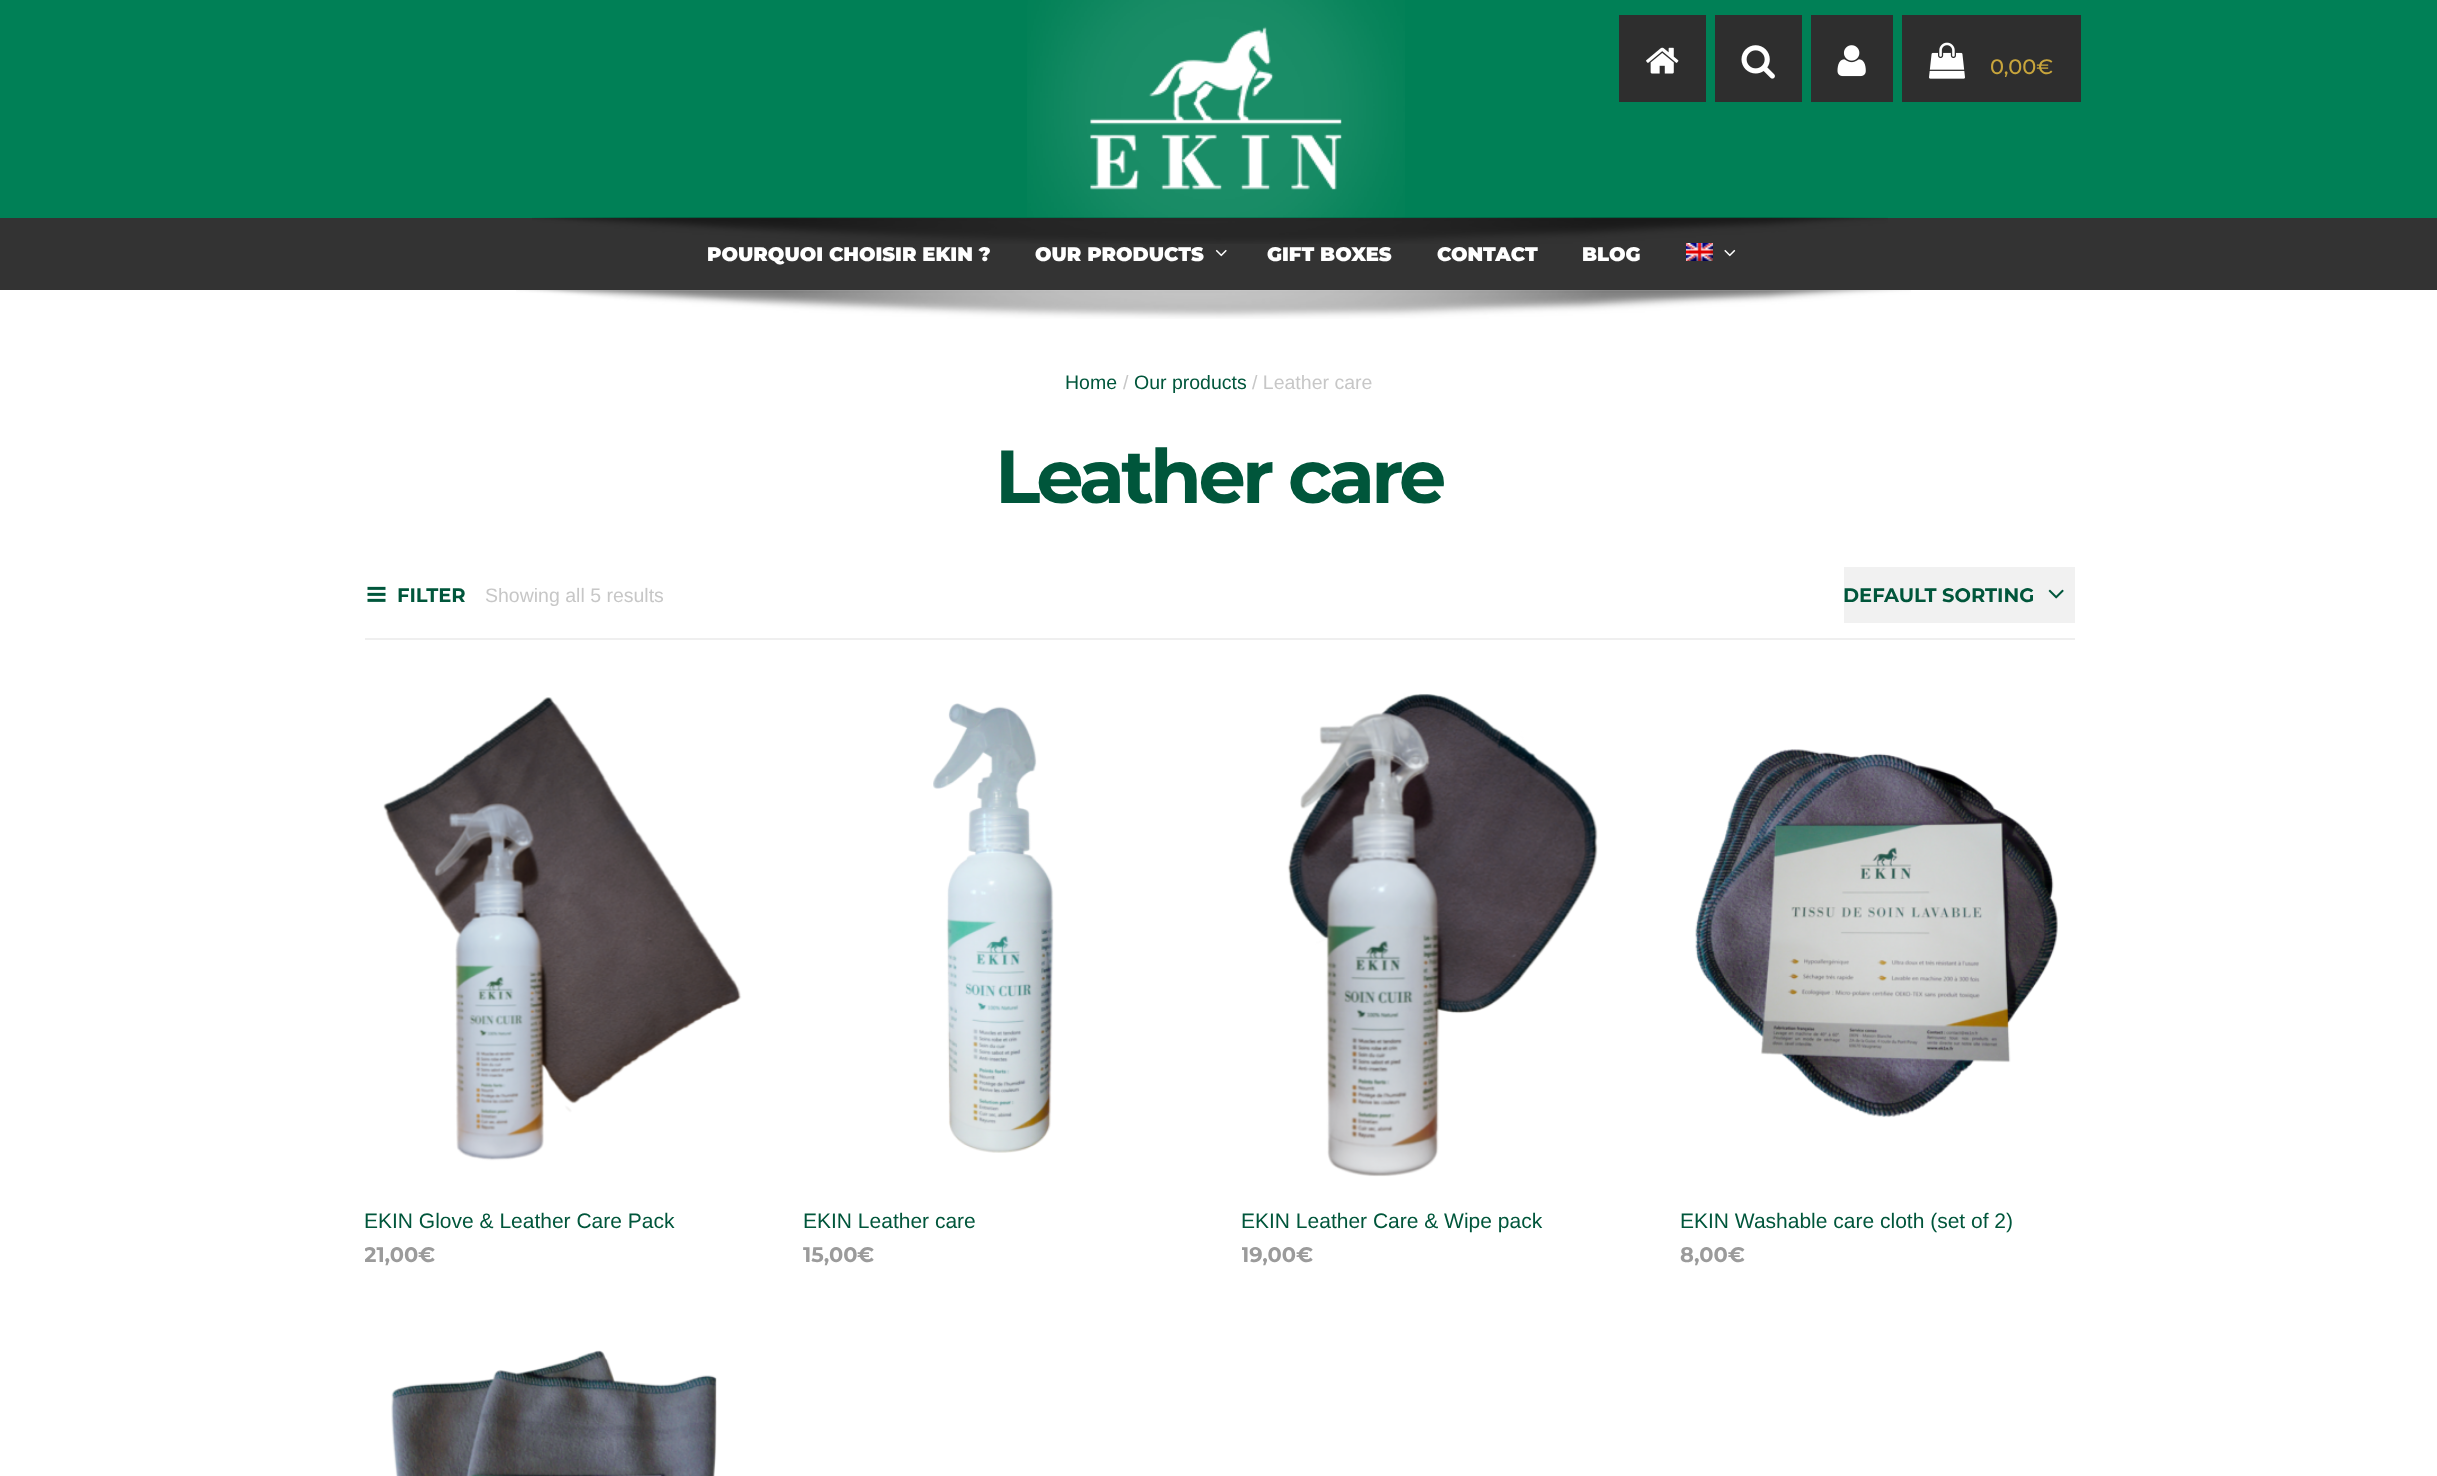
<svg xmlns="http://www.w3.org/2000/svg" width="2437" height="1476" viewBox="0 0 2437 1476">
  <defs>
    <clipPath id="clip1"><rect x="365" y="1233" width="393" height="50"/></clipPath>
    <clipPath id="clip2"><rect x="803" y="1233" width="394" height="50"/></clipPath>
    <clipPath id="clip3"><rect x="1242" y="1233" width="393" height="50"/></clipPath>
  </defs>
  <rect width="100%" height="100%" fill="#ffffff"/>
  <rect x="0" y="0" width="2437" height="218" fill="#008056"/>
  <rect x="0" y="218" width="2437" height="72" fill="#333333"/>
  <image x="532" y="217" width="1356" height="27" href="img6.png"/>
  <image x="1027" y="0" width="378" height="218" href="img1.png"/>
  <rect x="1619" y="15" width="87" height="87" fill="#2e2e2e"/>
  <image x="1646" y="47" width="33" height="27" href="img2.png"/>
  <rect x="1715" y="15" width="87" height="87" fill="#2e2e2e"/>
  <image x="1741" y="45" width="34" height="34" href="img3.png"/>
  <rect x="1811" y="15" width="82" height="87" fill="#2e2e2e"/>
  <image x="1837" y="45" width="29" height="32" href="img4.png"/>
  <rect x="1902" y="15" width="179" height="87" fill="#2e2e2e"/>
  <image x="1929" y="42" width="36" height="37" href="img5.png"/>
  <text x="1990" y="74" font-family="Montserrat" font-size="21" font-weight="500" fill="#c8a53c">0,00€</text>
  <text x="707" y="261" font-family="Montserrat" font-size="19.5" font-weight="900" fill="#ffffff">POURQUOI CHOISIR EKIN ?</text>
  <text x="1035" y="261" font-family="Montserrat" font-size="19.5" font-weight="900" fill="#ffffff">OUR PRODUCTS</text>
  <image x="1215" y="249" width="12" height="8" href="img7.png"/>
  <text x="1267" y="261" font-family="Montserrat" font-size="19.5" font-weight="900" fill="#ffffff">GIFT BOXES</text>
  <text x="1437" y="261" font-family="Montserrat" font-size="19.5" font-weight="900" fill="#ffffff">CONTACT</text>
  <text x="1582" y="261" font-family="Montserrat" font-size="19.5" font-weight="900" fill="#ffffff">BLOG</text>
  <image x="1686" y="243" width="27" height="18" href="img8.png"/>
  <image x="1724" y="249" width="12" height="8" href="img9.png"/>
  <image x="516" y="290" width="1395" height="29" href="img10.png"/>
  <text x="1065" y="389" font-family="Arimo" font-size="19.5" fill="#00563b">Home</text>
  <text x="1123" y="389" font-family="Arimo" font-size="19.5" fill="#c7c7c7">/</text>
  <text x="1134" y="389" font-family="Arimo" font-size="19.5" fill="#00563b">Our products</text>
  <text x="1252" y="389" font-family="Arimo" font-size="19.5" fill="#c7c7c7">/ Leather care</text>
  <text x="995" y="503" font-family="Montserrat" font-size="75" font-weight="bold" letter-spacing="-3.75" fill="#00563b">Leather care</text>
  <image x="367" y="586" width="19" height="16" href="img11.png"/>
  <text x="397" y="602" font-family="Montserrat" font-size="19.5" font-weight="bold" fill="#00563b">FILTER</text>
  <text x="485" y="602" font-family="Arimo" font-size="19.5" fill="#c7c7c7">Showing all 5 results</text>
  <rect x="1844" y="567" width="231" height="56" fill="#f1f1f1"/>
  <text x="1843" y="602" font-family="Montserrat" font-size="19.5" font-weight="bold" fill="#00563b">DEFAULT SORTING</text>
  <image x="2048" y="589" width="16" height="10" href="img12.png"/>
  <rect x="365" y="638" width="1710" height="2" fill="#efefef"/>
  <image x="383" y="697" width="359" height="464" href="img13.png"/>
  <text x="364" y="1228" font-family="Arimo" font-size="21" fill="#00563b">EKIN Glove &amp; Leather Care Pack</text>
  <g clip-path="url(#clip1)">
    <text x="364" y="1262" font-family="Montserrat" font-size="21" font-weight="bold" fill="#9b9b9b">21,00</text>
  </g>
  <text x="418" y="1262" font-family="Montserrat" font-size="21" font-weight="bold" fill="#9b9b9b">€</text>
  <image x="933" y="703" width="121" height="450" href="img14.png"/>
  <text x="803" y="1228" font-family="Arimo" font-size="21" fill="#00563b">EKIN Leather care</text>
  <g clip-path="url(#clip2)">
    <text x="803" y="1262" font-family="Montserrat" font-size="21" font-weight="bold" fill="#9b9b9b">15,00</text>
  </g>
  <text x="857" y="1262" font-family="Montserrat" font-size="21" font-weight="bold" fill="#9b9b9b">€</text>
  <image x="1287" y="693" width="311" height="484" href="img15.png"/>
  <text x="1241" y="1228" font-family="Arimo" font-size="21" fill="#00563b">EKIN Leather Care &amp; Wipe pack</text>
  <g clip-path="url(#clip3)">
    <text x="1241" y="1262" font-family="Montserrat" font-size="21" font-weight="bold" fill="#9b9b9b">19,00</text>
  </g>
  <text x="1296" y="1262" font-family="Montserrat" font-size="21" font-weight="bold" fill="#9b9b9b">€</text>
  <image x="1695" y="749" width="363" height="369" href="img16.png"/>
  <text x="1680" y="1228" font-family="Arimo" font-size="21" fill="#00563b">EKIN Washable care cloth (set of 2)</text>
  <text x="1680" y="1262" font-family="Montserrat" font-size="21" font-weight="bold" fill="#9b9b9b">8,00€</text>
  <image x="391" y="1350" width="326" height="126" href="img17.png"/>
</svg>
